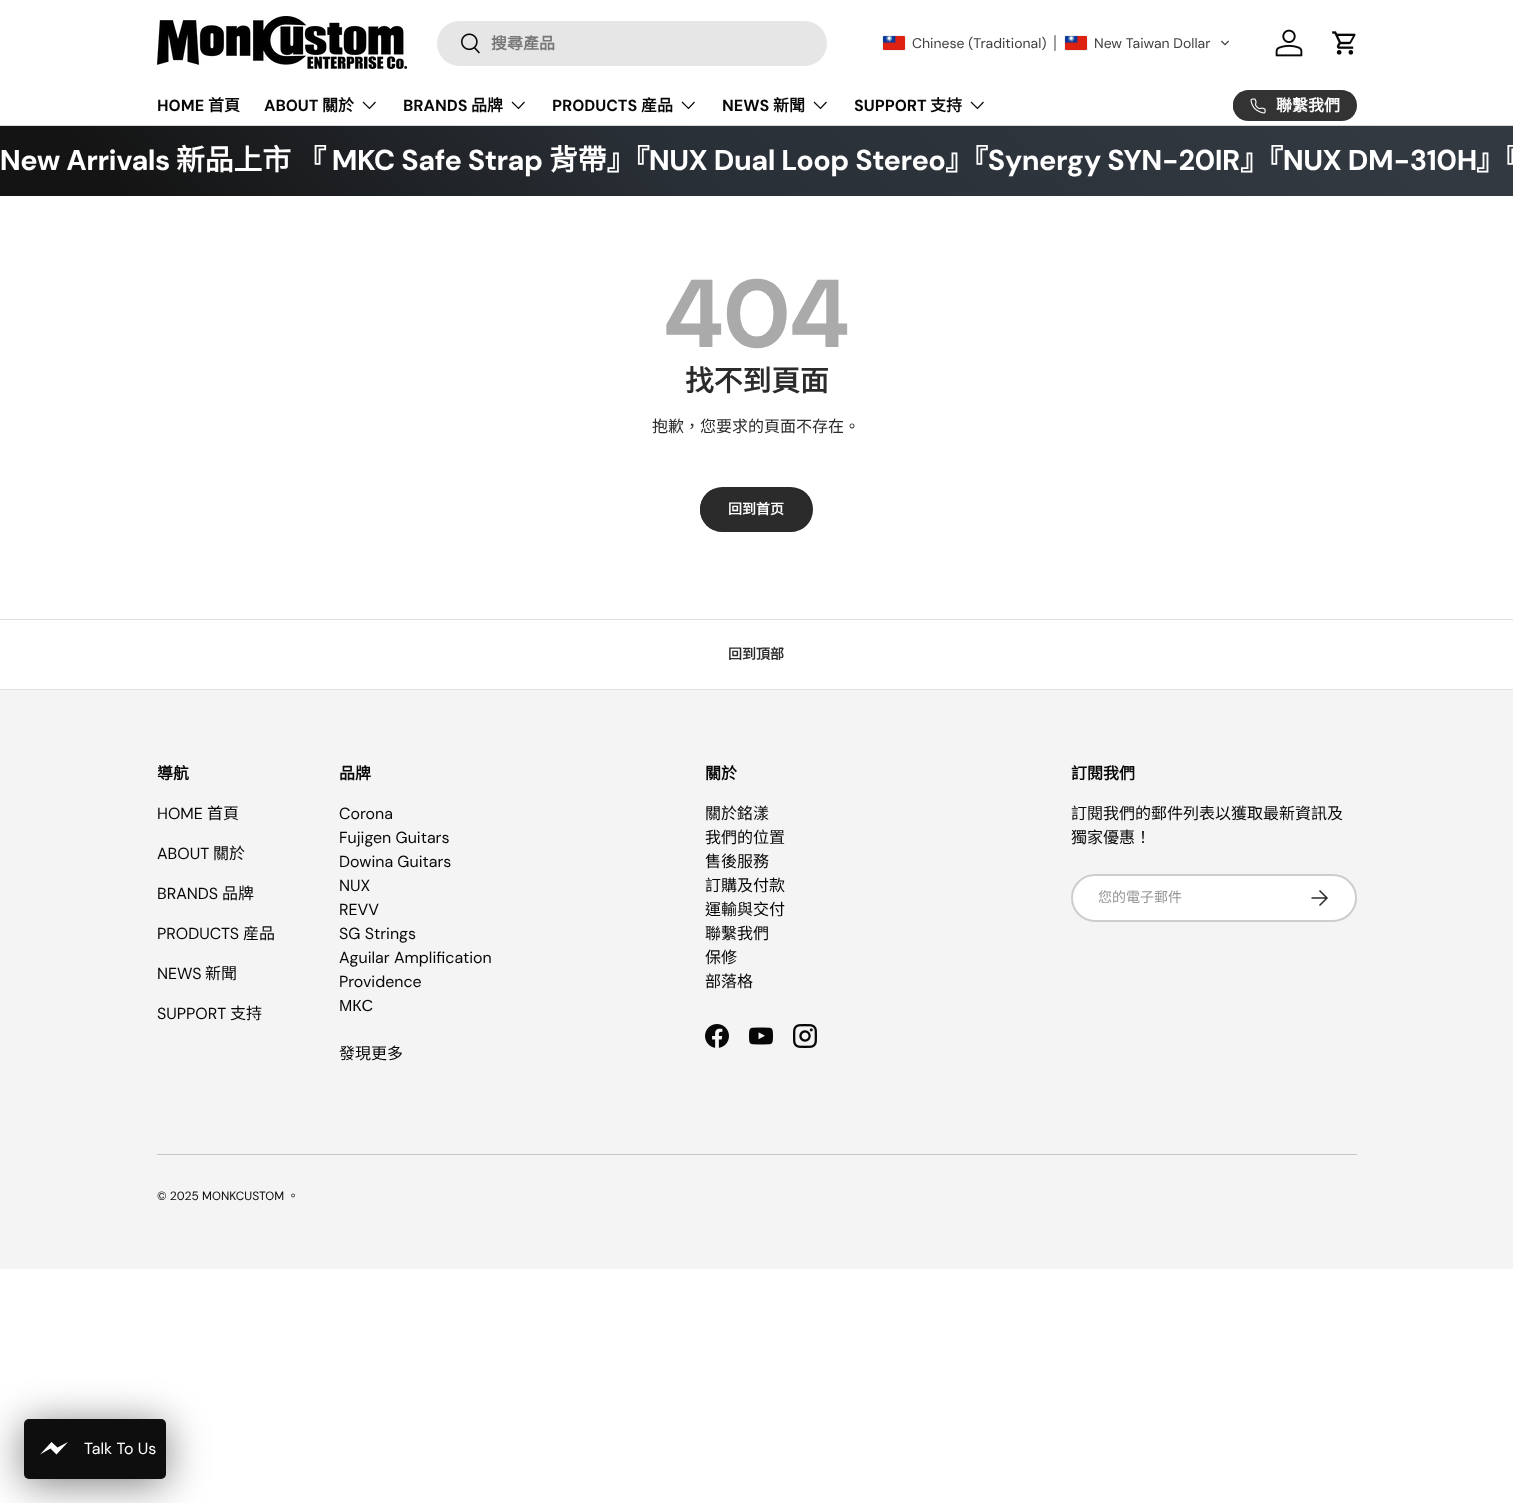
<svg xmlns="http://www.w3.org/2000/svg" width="1513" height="1503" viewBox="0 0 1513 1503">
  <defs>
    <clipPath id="clip1"><rect x="1233" y="90" width="124" height="31" rx="15.5"/></clipPath>
    <linearGradient id="g1" gradientUnits="userSpaceOnUse" x1="1002" y1="62" x2="1348" y2="149"><stop offset="0.6" stop-color="#5a5a5a"/><stop offset="0.6" stop-color="#333333"/><stop offset="1" stop-color="#333333"/></linearGradient>
    <linearGradient id="g2" gradientUnits="userSpaceOnUse" x1="1152" y1="-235" x2="361" y2="557"><stop offset="0.08" stop-color="#323940"/><stop offset="0.56" stop-color="#292f36"/><stop offset="0.92" stop-color="#141414"/></linearGradient>
    <clipPath id="clip2"><rect x="700" y="487" width="113" height="45" rx="22.5"/></clipPath>
    <linearGradient id="g3" gradientUnits="userSpaceOnUse" x1="489" y1="470" x2="806" y2="549"><stop offset="0.6" stop-color="#525352"/><stop offset="0.6" stop-color="#2a2b2a"/><stop offset="1" stop-color="#2a2b2a"/></linearGradient>
    <filter id="blur1" x="-50%" y="-200%" width="200%" height="500%"><feGaussianBlur stdDeviation="20"/></filter>
  </defs>
  <rect width="100%" height="100%" fill="#ffffff"/>
  <rect x="0" y="125" width="1513" height="1" fill="#dadada"/>
  <image x="157" y="16" width="250" height="53" href="img1.png"/>
  <rect x="437" y="21" width="390" height="45" rx="22.5" fill="#e6e6e6"/>
  <image x="461" y="33" width="19" height="21" href="img2.png"/>
  <text x="491" y="49" font-family="Noto Sans CJK TC" font-size="16" font-weight="bold" fill="#777777">搜尋產品</text>
  <rect x="882.5" y="35.5" width="23" height="15" rx="1.5" fill="none" stroke="#f0f1f2"/>
  <image x="883" y="36" width="22" height="14" href="img3.png"/>
  <text x="912" y="48" font-family="'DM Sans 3'" font-size="14" fill="#404040">Chinese (Traditional)</text>
  <image x="1054" y="35" width="2" height="16" href="img4.png"/>
  <rect x="1064.5" y="35.5" width="23" height="15" rx="1.5" fill="none" stroke="#f0f1f2"/>
  <image x="1065" y="36" width="22" height="14" href="img3.png"/>
  <text x="1094" y="48" font-family="'DM Sans 3'" font-size="14" fill="#404040">New Taiwan Dollar</text>
  <image x="1221" y="40" width="8" height="6" href="img5.png"/>
  <image x="1275" y="29" width="28" height="28" href="img6.png"/>
  <image x="1332" y="31" width="24" height="24" href="img7.png"/>
  <text x="157" y="111" font-family="'DM Sans 3'" font-size="16" font-weight="bold" fill="#070707">HOME</text>
  <text x="208" y="111" font-family="Noto Sans CJK TC" font-size="16" font-weight="bold" fill="#070707">首頁</text>
  <text x="264" y="111" font-family="'DM Sans 3'" font-size="16" font-weight="bold" fill="#070707">ABOUT</text>
  <text x="322" y="111" font-family="Noto Sans CJK TC" font-size="16" font-weight="bold" fill="#070707">關於</text>
  <path d="M375.5 102L369.5 108.5L363 102" fill="none" stroke="#070707" stroke-width="1.2"/>
  <text x="403" y="111" font-family="'DM Sans 3'" font-size="16" font-weight="bold" fill="#070707">BRANDS</text>
  <text x="471" y="111" font-family="Noto Sans CJK TC" font-size="16" font-weight="bold" fill="#070707">品牌</text>
  <path d="M524.5 102L518.5 108.5L512 102" fill="none" stroke="#070707" stroke-width="1.2"/>
  <text x="552" y="111" font-family="'DM Sans 3'" font-size="16" font-weight="bold" fill="#070707">PRODUCTS</text>
  <text x="641" y="111" font-family="Noto Sans CJK TC" font-size="16" font-weight="bold" fill="#070707">産品</text>
  <path d="M694.5 102L688.5 108.5L682 102" fill="none" stroke="#070707" stroke-width="1.2"/>
  <text x="722" y="111" font-family="'DM Sans 3'" font-size="16" font-weight="bold" fill="#070707">NEWS</text>
  <text x="773" y="111" font-family="Noto Sans CJK TC" font-size="16" font-weight="bold" fill="#070707">新聞</text>
  <path d="M826.5 102L820.5 108.5L814 102" fill="none" stroke="#070707" stroke-width="1.2"/>
  <text x="854" y="111" font-family="'DM Sans 3'" font-size="16" font-weight="bold" fill="#070707">SUPPORT</text>
  <text x="930" y="111" font-family="Noto Sans CJK TC" font-size="16" font-weight="bold" fill="#070707">支持</text>
  <path d="M983.5 102L977.5 108.5L971 102" fill="none" stroke="#070707" stroke-width="1.2"/>
  <g clip-path="url(#clip1)">
    <rect x="1233" y="92" width="122" height="27" fill="url(#g1)"/>
  </g>
  <rect x="1234" y="91" width="122" height="29" rx="14.5" fill="none" stroke="#333333" stroke-width="2"/>
  <image x="1250" y="98" width="16" height="16" href="img8.png"/>
  <text x="1276" y="111" font-family="Noto Sans CJK TC" font-size="16" font-weight="bold" fill="#ffffff">聯繫我們</text>
  <rect x="0" y="126" width="1513" height="70" fill="url(#g2)"/>
  <text x="0" y="170" font-family="'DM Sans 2'" font-size="28.75" font-weight="bold" fill="#ffffff">New Arrivals</text>
  <text x="176" y="170" font-family="Noto Sans CJK TC" font-size="28.75" font-weight="bold" fill="#ffffff">新品上市 『</text>
  <text x="332" y="170" font-family="'DM Sans 2'" font-size="28.75" font-weight="bold" fill="#ffffff">MKC Safe Strap</text>
  <text x="549" y="170" font-family="Noto Sans CJK TC" font-size="28.75" font-weight="bold" fill="#ffffff">背帶』『</text>
  <text x="649" y="170" font-family="'DM Sans 2'" font-size="28.75" font-weight="bold" fill="#ffffff">NUX Dual Loop Stereo</text>
  <text x="945" y="170" font-family="Noto Sans CJK TC" font-size="28.75" font-weight="bold" fill="#ffffff">』『</text>
  <text x="988" y="170" font-family="'DM Sans 2'" font-size="28.75" font-weight="bold" fill="#ffffff">Synergy SYN-20IR</text>
  <text x="1240" y="170" font-family="Noto Sans CJK TC" font-size="28.75" font-weight="bold" fill="#ffffff">』『</text>
  <text x="1283" y="170" font-family="'DM Sans 2'" font-size="28.75" font-weight="bold" fill="#ffffff">NUX DM-310H</text>
  <text x="1476" y="170" font-family="Noto Sans CJK TC" font-size="28.75" font-weight="bold" fill="#ffffff">』『</text>
  <text x="664" y="347" font-family="DM Sans" font-size="96" font-weight="bold" fill="#aaaaaa">404</text>
  <text x="685" y="391" font-family="Noto Sans CJK TC" font-size="28.75" font-weight="bold" fill="#2a2b2a">找不到頁面</text>
  <text x="652" y="432" font-family="Noto Sans CJK TC" font-size="16" fill="#2a2b2a">抱歉，您要求的頁面不存在。</text>
  <g clip-path="url(#clip2)">
    <rect x="700" y="489" width="111" height="41" fill="url(#g3)"/>
  </g>
  <rect x="701" y="488" width="111" height="43" rx="21.5" fill="none" stroke="#2a2b2a" stroke-width="2"/>
  <text x="728" y="514" font-family="Noto Sans CJK TC" font-size="14" font-weight="bold" fill="#ffffff">回到首页</text>
  <rect x="0" y="619" width="1513" height="1" fill="#dfdfdf"/>
  <rect x="0" y="689" width="1513" height="1" fill="#dfdfdf"/>
  <text x="728" y="659" font-family="Noto Sans CJK TC" font-size="14" font-weight="bold" fill="#2a2b2a">回到頂部</text>
  <rect x="0" y="690" width="1513" height="579" fill="#f4f4f4"/>
  <text x="157" y="779" font-family="Noto Sans CJK TC" font-size="16" font-weight="bold" fill="#070707">導航</text>
  <text x="157" y="819" font-family="DM Sans" font-size="16" fill="#070707">HOME</text>
  <text x="207" y="819" font-family="Noto Sans CJK TC" font-size="16" fill="#070707">首頁</text>
  <text x="157" y="859" font-family="DM Sans" font-size="16" fill="#070707">ABOUT</text>
  <text x="213" y="859" font-family="Noto Sans CJK TC" font-size="16" fill="#070707">關於</text>
  <text x="157" y="899" font-family="DM Sans" font-size="16" fill="#070707">BRANDS</text>
  <text x="222" y="899" font-family="Noto Sans CJK TC" font-size="16" fill="#070707">品牌</text>
  <text x="157" y="939" font-family="DM Sans" font-size="16" fill="#070707">PRODUCTS</text>
  <text x="243" y="939" font-family="Noto Sans CJK TC" font-size="16" fill="#070707">産品</text>
  <text x="157" y="979" font-family="DM Sans" font-size="16" fill="#070707">NEWS</text>
  <text x="205" y="979" font-family="Noto Sans CJK TC" font-size="16" fill="#070707">新聞</text>
  <text x="157" y="1019" font-family="DM Sans" font-size="16" fill="#070707">SUPPORT</text>
  <text x="230" y="1019" font-family="Noto Sans CJK TC" font-size="16" fill="#070707">支持</text>
  <text x="339" y="779" font-family="Noto Sans CJK TC" font-size="16" font-weight="bold" fill="#070707">品牌</text>
  <text x="339" y="819" font-family="DM Sans" font-size="16" fill="#070707">Corona</text>
  <text x="339" y="843" font-family="DM Sans" font-size="16" fill="#070707">Fujigen Guitars</text>
  <text x="339" y="867" font-family="DM Sans" font-size="16" fill="#070707">Dowina Guitars</text>
  <text x="339" y="891" font-family="DM Sans" font-size="16" fill="#070707">NUX</text>
  <text x="339" y="915" font-family="DM Sans" font-size="16" fill="#070707">REVV</text>
  <text x="339" y="939" font-family="DM Sans" font-size="16" fill="#070707">SG Strings</text>
  <text x="339" y="963" font-family="DM Sans" font-size="16" fill="#070707">Aguilar Amplification</text>
  <text x="339" y="987" font-family="DM Sans" font-size="16" fill="#070707">Providence</text>
  <text x="339" y="1011" font-family="Liberation Sans" font-size="16" fill="#070707">МКС</text>
  <text x="339" y="1059" font-family="Noto Sans CJK TC" font-size="16" fill="#070707">發現更多</text>
  <text x="705" y="779" font-family="Noto Sans CJK TC" font-size="16" font-weight="bold" fill="#070707">關於</text>
  <text x="705" y="819" font-family="Noto Sans CJK TC" font-size="16" fill="#070707">關於銘漾</text>
  <text x="705" y="843" font-family="Noto Sans CJK TC" font-size="16" fill="#070707">我們的位置</text>
  <text x="705" y="867" font-family="Noto Sans CJK TC" font-size="16" fill="#070707">售後服務</text>
  <text x="705" y="891" font-family="Noto Sans CJK TC" font-size="16" fill="#070707">訂購及付款</text>
  <text x="705" y="915" font-family="Noto Sans CJK TC" font-size="16" fill="#070707">運輸與交付</text>
  <text x="705" y="939" font-family="Noto Sans CJK TC" font-size="16" fill="#070707">聯繫我們</text>
  <text x="705" y="963" font-family="Noto Sans CJK TC" font-size="16" fill="#070707">保修</text>
  <text x="705" y="987" font-family="Noto Sans CJK TC" font-size="16" fill="#070707">部落格</text>
  <image x="705" y="1024" width="24" height="24" href="img9.png"/>
  <image x="749" y="1027" width="24" height="18" href="img10.png"/>
  <image x="793" y="1024" width="24" height="24" href="img11.png"/>
  <text x="1071" y="779" font-family="Noto Sans CJK TC" font-size="16" font-weight="bold" fill="#070707">訂閱我們</text>
  <text x="1071" y="819" font-family="Noto Sans CJK TC" font-size="16" fill="#070707">訂閱我們的郵件列表以獲取最新資訊及</text>
  <text x="1071" y="843" font-family="Noto Sans CJK TC" font-size="16" fill="#070707">獨家優惠！</text>
  <rect x="1071" y="874" width="286" height="48" rx="24" fill="#ffffff"/>
  <rect x="1072" y="875" width="284" height="46" rx="23" fill="none" stroke="#070707" stroke-opacity="0.2" stroke-width="2"/>
  <text x="1098" y="902" font-family="Noto Sans CJK TC" font-size="14" fill="#959595">您的電子郵件</text>
  <path d="M1311.5 898H1326.5M1319.5 890.5L1327 898L1319.5 905.5" fill="none" stroke="#2a2b2a" stroke-width="1.5"/>
  <rect x="157" y="1154" width="1200" height="1" fill="#c5c5c5"/>
  <text x="157" y="1200" font-family="'DM Sans 2'" font-size="12" fill="#070707">© 2025 MONKCUSTOM</text>
  <text x="287" y="1200" font-family="Noto Sans CJK TC" font-size="12" fill="#070707">。</text>
  <rect x="24" y="1424" width="142" height="60" rx="5" fill="#000000" fill-opacity="0.5" filter="url(#blur1)"/>
  <rect x="24" y="1419" width="142" height="60" rx="5" fill="#0e0e0e"/>
  <path d="M56.5 1454.5L50.5 1448.5L40 1454.5L51.5 1442L57.5 1447.5L68 1442Z" fill="#ffffff"/>
  <text x="84" y="1454" font-family="DM Sans" font-size="16" fill="#ffffff">Talk To Us</text>
</svg>
